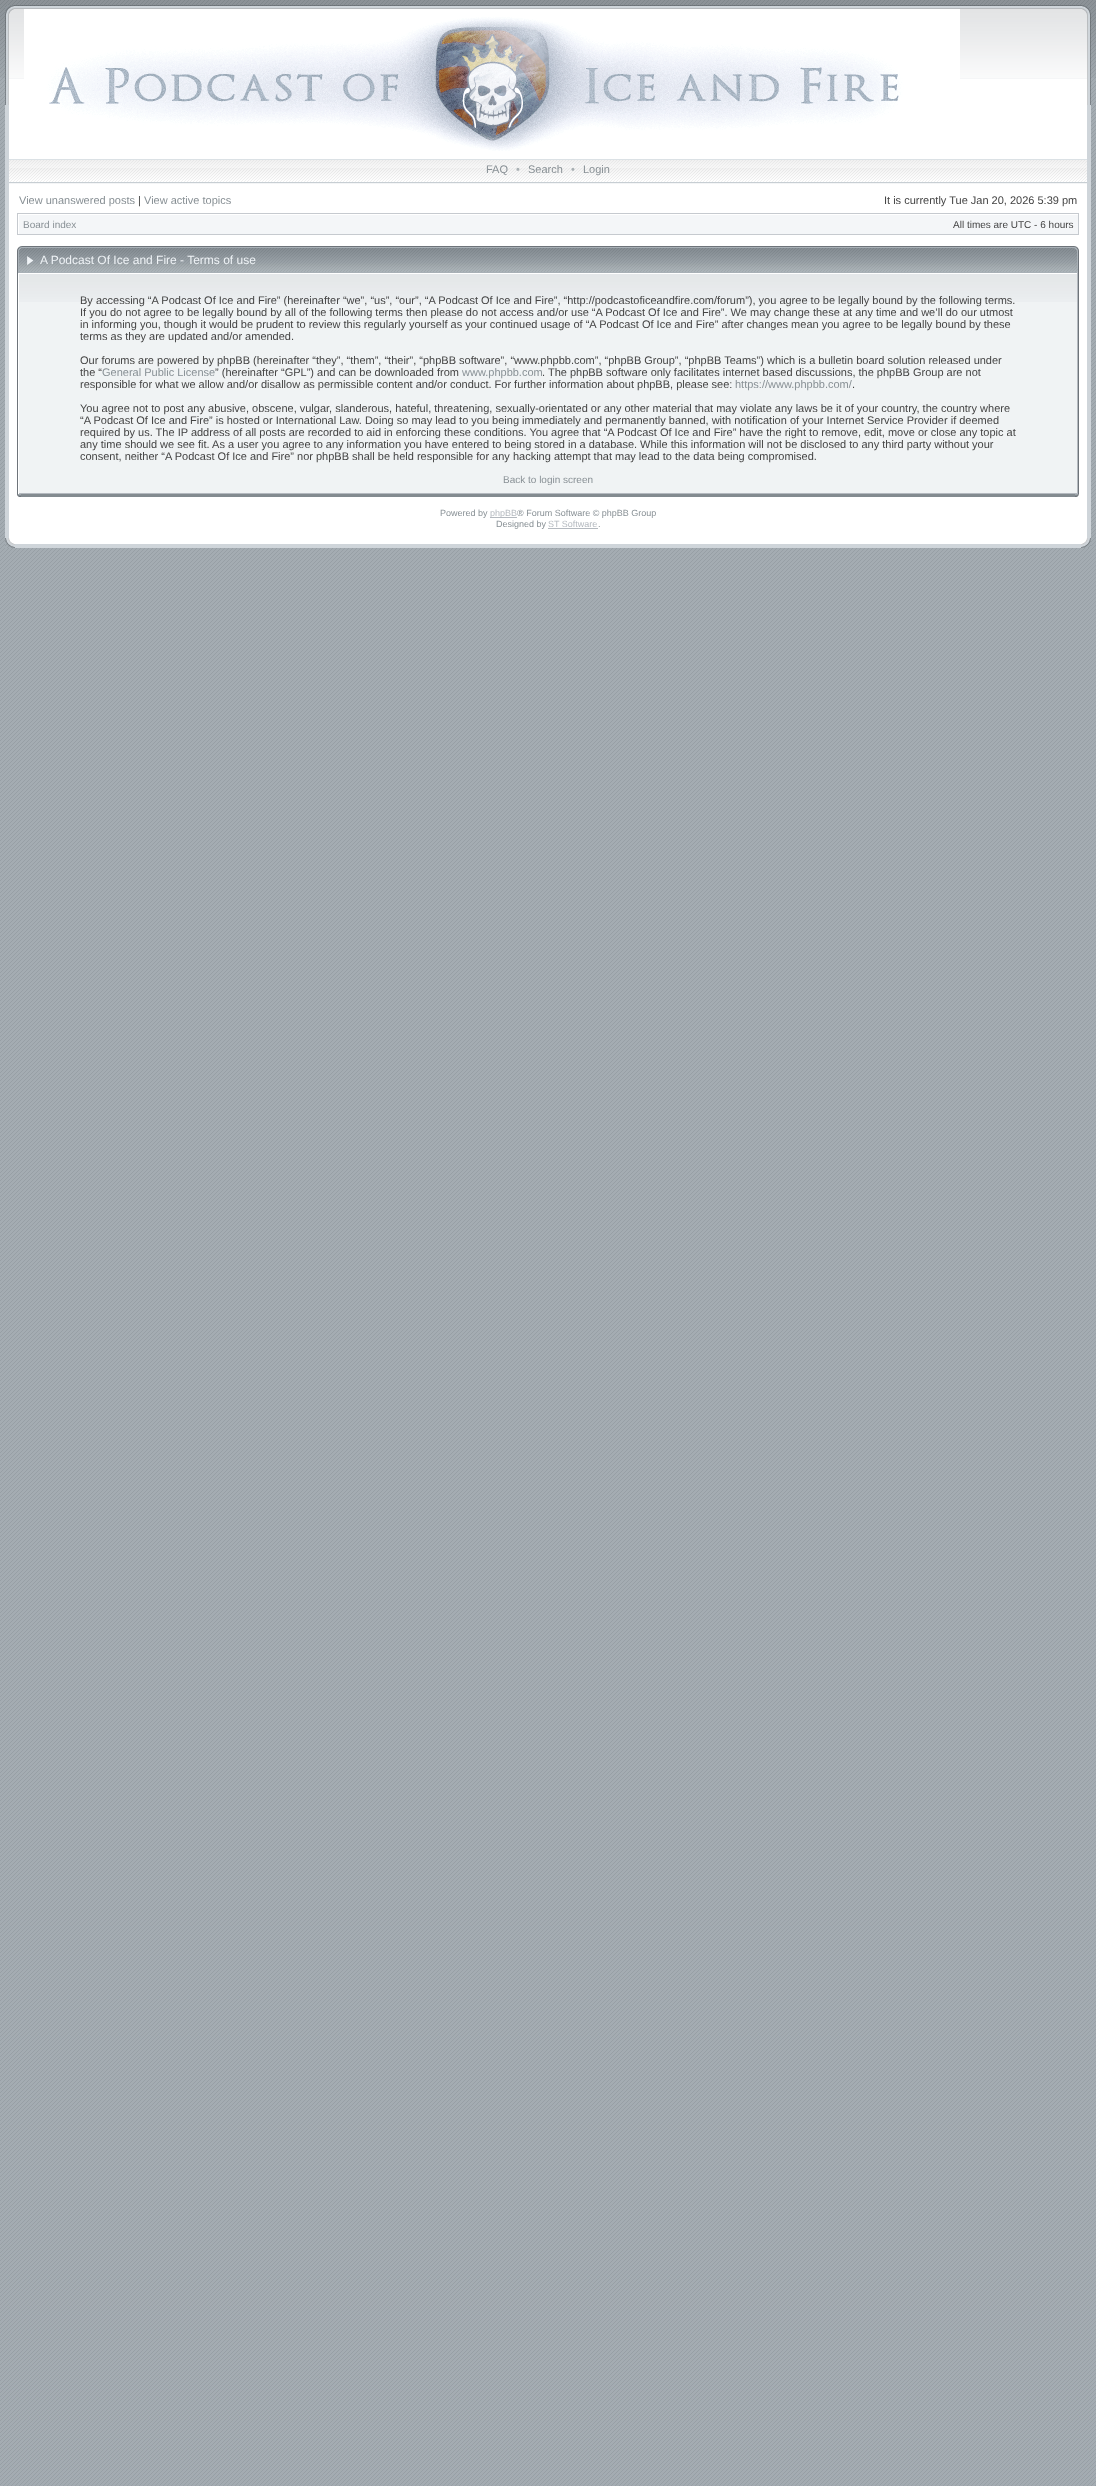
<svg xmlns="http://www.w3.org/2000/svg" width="1096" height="2486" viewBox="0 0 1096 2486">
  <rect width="100%" height="100%" fill="#ffffff"/>
  <image x="0" y="78" width="1096" height="2408" href="img1.png"/>
  <image x="0" y="0" width="1096" height="78" href="img2.png"/>
  <rect x="9" y="79" width="1078" height="465" fill="#ffffff"/>
  <rect x="5" y="105" width="4" height="433" fill="#cfd5da"/>
  <image x="5" y="5" width="4" height="100" href="img3.png"/>
  <image x="9" y="5" width="1078" height="74" href="img4.png"/>
  <image x="9" y="5" width="5" height="9" href="img5.png"/>
  <image x="1082" y="5" width="5" height="10" href="img6.png"/>
  <image x="24" y="9" width="936" height="142" href="img7.png"/>
  <image x="9" y="159" width="1078" height="25" href="img8.png"/>
  <text x="486" y="173" font-family="Liberation Sans" font-size="11" fill="#889095">FAQ</text>
  <text x="516" y="173" font-family="Liberation Sans" font-size="11" fill="#a8afb3">•</text>
  <text x="528" y="173" font-family="Liberation Sans" font-size="11" fill="#889095">Search</text>
  <text x="571" y="173" font-family="Liberation Sans" font-size="11" fill="#a8afb3">•</text>
  <text x="583" y="173" font-family="Liberation Sans" font-size="11" fill="#889095">Login</text>
  <rect x="1087" y="105" width="4" height="433" fill="#cfd5da"/>
  <image x="1087" y="5" width="4" height="100" href="img9.png"/>
  <text x="19" y="204" font-family="Liberation Sans" font-size="11" fill="#889095">View unanswered posts</text>
  <text x="138" y="204" font-family="Liberation Sans" font-size="11" fill="#444444">|</text>
  <text x="144" y="204" font-family="Liberation Sans" font-size="11" fill="#889095">View active topics</text>
  <text x="884" y="204" font-family="Liberation Sans" font-size="11" fill="#444444">It is currently Tue Jan 20, 2026 5:39 pm</text>
  <rect x="17.5" y="213.5" width="1061" height="21" fill="none" stroke="#c6cacf"/>
  <rect x="19" y="215" width="1059" height="19" fill="#f4f6f8"/>
  <text x="23" y="228" font-family="Liberation Sans" font-size="10" fill="#889095">Board index</text>
  <text x="953" y="228" font-family="Liberation Sans" font-size="10" fill="#444444">All times are UTC - 6 hours</text>
  <rect x="17" y="494" width="1062" height="3" fill="#838b90"/>
  <image x="18" y="246" width="1060" height="27" href="img10.png"/>
  <image x="17" y="246" width="17" height="27" href="img11.png"/>
  <image x="1074" y="246" width="5" height="27" href="img12.png"/>
  <text x="40" y="264" font-family="Liberation Sans" font-size="12" fill="#eff3f6">A Podcast Of Ice and Fire - Terms of use</text>
  <rect x="1078" y="273" width="1" height="221" fill="#6e747a"/>
  <rect x="17" y="273" width="1" height="221" fill="#6e747a"/>
  <rect x="19" y="302" width="1058" height="191" fill="#f0f3f4"/>
  <image x="19" y="274" width="1058" height="28" href="img13.png"/>
  <rect x="1077" y="273" width="1" height="221" fill="#b4b9bf"/>
  <rect x="18" y="493" width="1060" height="1" fill="#b4b9bf"/>
  <rect x="18" y="493" width="1" height="1" fill="#ffffff"/>
  <text x="80" y="304" font-family="Liberation Sans" font-size="11" fill="#444444">By accessing “A Podcast Of Ice and Fire” (hereinafter “we”, “us”, “our”, “A Podcast Of Ice and Fire”, “http://podcastoficeandfire.com/forum”), you agree to be legally bound by the following terms.</text>
  <text x="80" y="316" font-family="Liberation Sans" font-size="11" fill="#444444">If you do not agree to be legally bound by all of the following terms then please do not access and/or use “A Podcast Of Ice and Fire”. We may change these at any time and we’ll do our utmost</text>
  <text x="80" y="328" font-family="Liberation Sans" font-size="11" fill="#444444">in informing you, though it would be prudent to review this regularly yourself as your continued usage of “A Podcast Of Ice and Fire” after changes mean you agree to be legally bound by these</text>
  <text x="80" y="340" font-family="Liberation Sans" font-size="11" fill="#444444">terms as they are updated and/or amended.</text>
  <text x="80" y="364" font-family="Liberation Sans" font-size="11" fill="#444444">Our forums are powered by phpBB (hereinafter “they”, “them”, “their”, “phpBB software”, “www.phpbb.com”, “phpBB Group”, “phpBB Teams”) which is a bulletin board solution released under</text>
  <text x="80" y="376" font-family="Liberation Sans" font-size="11" fill="#444444">the “</text>
  <text x="102" y="376" font-family="Liberation Sans" font-size="11" fill="#889095">General Public License</text>
  <text x="215" y="376" font-family="Liberation Sans" font-size="11" fill="#444444">” (hereinafter “GPL”) and can be downloaded from</text>
  <text x="462" y="376" font-family="Liberation Sans" font-size="11" fill="#889095">www.phpbb.com</text>
  <text x="542" y="376" font-family="Liberation Sans" font-size="11" fill="#444444">. The phpBB software only facilitates internet based discussions, the phpBB Group are not</text>
  <text x="80" y="388" font-family="Liberation Sans" font-size="11" fill="#444444">responsible for what we allow and/or disallow as permissible content and/or conduct. For further information about phpBB, please see:</text>
  <text x="735" y="388" font-family="Liberation Sans" font-size="11" fill="#889095">https://www.phpbb.com/</text>
  <text x="852" y="388" font-family="Liberation Sans" font-size="11" fill="#444444">.</text>
  <text x="80" y="412" font-family="Liberation Sans" font-size="11" fill="#444444">You agree not to post any abusive, obscene, vulgar, slanderous, hateful, threatening, sexually-orientated or any other material that may violate any laws be it of your country, the country where</text>
  <text x="80" y="424" font-family="Liberation Sans" font-size="11" fill="#444444">“A Podcast Of Ice and Fire” is hosted or International Law. Doing so may lead to you being immediately and permanently banned, with notification of your Internet Service Provider if deemed</text>
  <text x="80" y="436" font-family="Liberation Sans" font-size="11" fill="#444444">required by us. The IP address of all posts are recorded to aid in enforcing these conditions. You agree that “A Podcast Of Ice and Fire” have the right to remove, edit, move or close any topic at</text>
  <text x="80" y="448" font-family="Liberation Sans" font-size="11" fill="#444444">any time should we see fit. As a user you agree to any information you have entered to being stored in a database. While this information will not be disclosed to any third party without your</text>
  <text x="80" y="460" font-family="Liberation Sans" font-size="11" fill="#444444">consent, neither “A Podcast Of Ice and Fire” nor phpBB shall be held responsible for any hacking attempt that may lead to the data being compromised.</text>
  <text x="503" y="483" font-family="Liberation Sans" font-size="10" fill="#889095">Back to login screen</text>
  <image x="17" y="494" width="4" height="3" href="img14.png"/>
  <image x="1075" y="494" width="4" height="3" href="img15.png"/>
  <text x="440" y="516" font-family="Liberation Sans" font-size="9" fill="#889095">Powered by</text>
  <rect x="490" y="517" width="27" height="1" fill="#b4b9bf"/>
  <text x="490" y="516" font-family="Liberation Sans" font-size="9" fill="#b4b9bf">phpBB</text>
  <text x="517" y="516" font-family="Liberation Sans" font-size="9" fill="#889095">® Forum Software © phpBB Group</text>
  <text x="496" y="527" font-family="Liberation Sans" font-size="9" fill="#889095">Designed by</text>
  <text x="548" y="527" font-family="Liberation Sans" font-size="9" fill="#b4b9bf">ST Software</text>
  <text x="598" y="527" font-family="Liberation Sans" font-size="9" fill="#889095">.</text>
  <rect x="548" y="528" width="50" height="1" fill="#b4b9bf"/>
  <rect x="15" y="544" width="1066" height="4" fill="#cfd5da"/>
  <image x="5" y="538" width="10" height="10" href="img16.png"/>
  <image x="1081" y="538" width="10" height="10" href="img17.png"/>
</svg>
